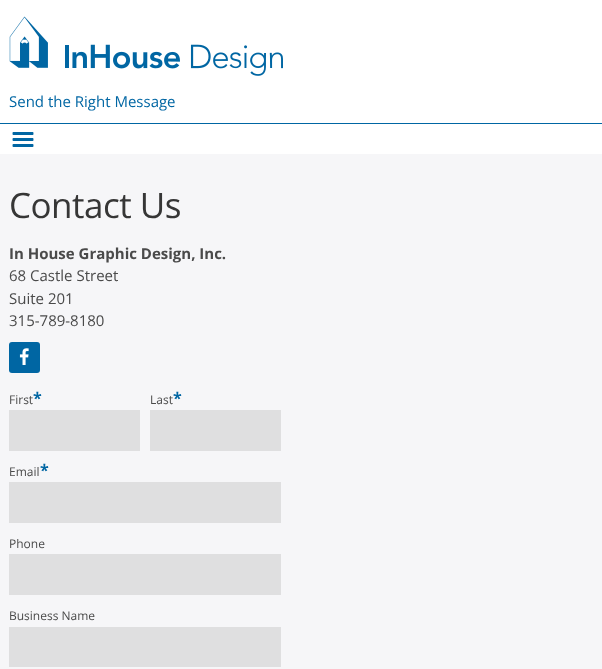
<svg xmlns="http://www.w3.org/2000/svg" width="602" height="669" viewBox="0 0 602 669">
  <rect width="100%" height="100%" fill="#ffffff"/>
  <image x="9" y="16" width="274" height="60" href="img1.png"/>
  <text x="9" y="107" font-family="Open Sans" font-size="15" fill="#0066a3">Send the Right Message</text>
  <rect x="0" y="123" width="602" height="1" fill="#0066a3"/>
  <image x="12" y="132" width="22" height="15" href="img2.png"/>
  <rect x="0" y="154" width="602" height="515" fill="#f6f6f8"/>
  <text x="9" y="218" font-family="Open Sans" font-size="35" letter-spacing="-0.5" fill="#363636">Contact Us</text>
  <text x="9" y="259" font-family="Open Sans" font-size="15" font-weight="bold" fill="#4a4a4a">In House Graphic Design, Inc.</text>
  <text x="9" y="281" font-family="Open Sans" font-size="15" fill="#4a4a4a">68 Castle Street</text>
  <text x="9" y="304" font-family="Open Sans" font-size="15" fill="#4a4a4a">Suite 201</text>
  <text x="9" y="326" font-family="Open Sans" font-size="15" fill="#4a4a4a">315-789-8180</text>
  <rect x="9" y="342" width="31" height="31" rx="3" fill="#0066a3"/>
  <image x="19" y="348" width="10" height="17" href="img3.png"/>
  <text x="9" y="404" font-family="Open Sans" font-size="12" fill="#4a4a4a">First</text>
  <text x="33" y="404" font-family="Open Sans" font-size="16" font-weight="bold" fill="#0066a3">*</text>
  <rect x="9" y="410" width="131" height="41" fill="#dfdfe0"/>
  <text x="150" y="404" font-family="Open Sans" font-size="12" fill="#4a4a4a">Last</text>
  <text x="173" y="404" font-family="Open Sans" font-size="16" font-weight="bold" fill="#0066a3">*</text>
  <rect x="150" y="410" width="131" height="41" fill="#dfdfe0"/>
  <text x="9" y="476" font-family="Open Sans" font-size="12" fill="#4a4a4a">Email</text>
  <text x="40" y="476" font-family="Open Sans" font-size="16" font-weight="bold" fill="#0066a3">*</text>
  <rect x="9" y="482" width="272" height="41" fill="#dfdfe0"/>
  <text x="9" y="548" font-family="Open Sans" font-size="12" fill="#4a4a4a">Phone</text>
  <rect x="9" y="554" width="272" height="41" fill="#dfdfe0"/>
  <text x="9" y="620" font-family="Open Sans" font-size="12" fill="#4a4a4a">Business Name</text>
  <rect x="9" y="627" width="272" height="40" fill="#dfdfe0"/>
</svg>
